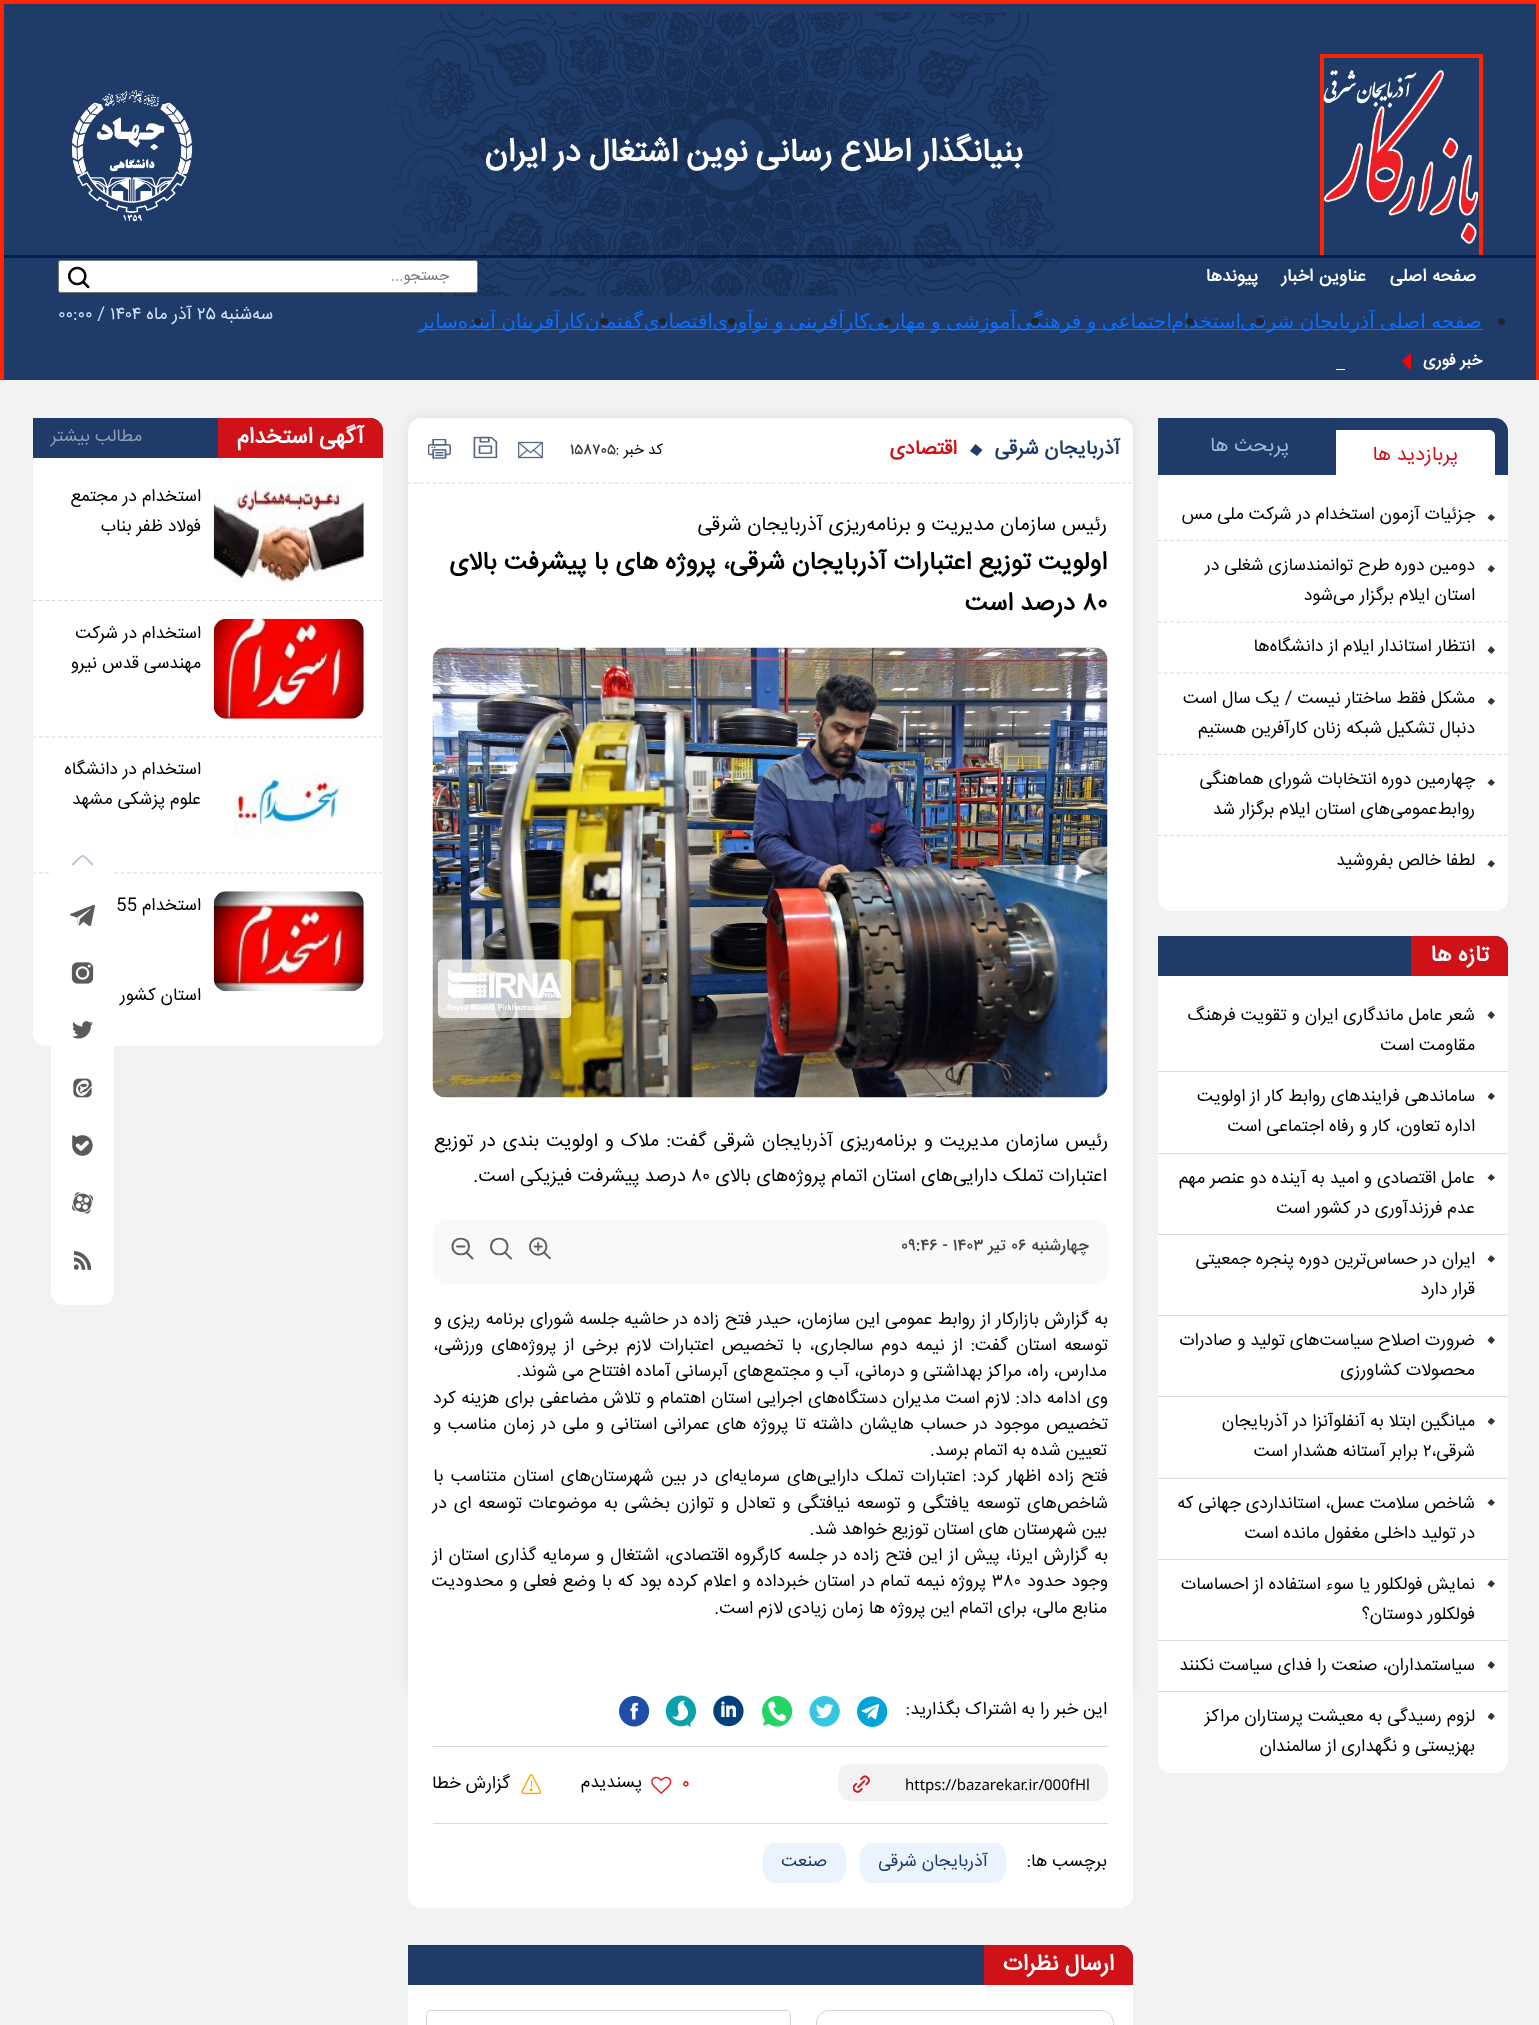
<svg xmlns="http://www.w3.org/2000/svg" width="1539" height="2025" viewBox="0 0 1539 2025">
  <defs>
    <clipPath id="clip1"><rect x="1488" y="698" width="7" height="7"/></clipPath>
    <clipPath id="clip2"><rect x="1488" y="1093" width="7" height="7"/></clipPath>
    <clipPath id="clip3"><rect x="1488" y="1418" width="7" height="7"/></clipPath>
    <clipPath id="clip4"><rect x="1488" y="1713" width="7" height="7"/></clipPath>
    <filter id="blur1" x="-50%" y="-200%" width="200%" height="500%"><feGaussianBlur stdDeviation="6"/></filter>
  </defs>
  <rect width="100%" height="100%" fill="#1e3b69"/>
  <rect x="0" y="0" width="1539" height="4" fill="#ff2501"/>
  <rect x="1536" y="0" width="3" height="380" fill="#ff2501"/>
  <rect x="0" y="0" width="4" height="380" fill="#ff2501"/>
  <rect x="1320" y="54" width="163" height="4" fill="#ff2501"/>
  <rect x="1479" y="54" width="4" height="201" fill="#ff2501"/>
  <rect x="1320" y="54" width="4" height="201" fill="#ff2501"/>
  <image x="1323" y="70" width="156" height="174" href="img1.png"/>
  <rect x="4" y="255" width="1532" height="3" fill="#011f53"/>
  <image x="387" y="12" width="679" height="285" href="img2.png"/>
  <text x="1023" y="161" word-spacing="-1.25" font-family="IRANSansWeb" font-size="32.5" font-weight="bold" direction="rtl" fill="#ffffff">بنیانگذار اطلاع رسانی نوین اشتغال در ایران</text>
  <image x="72" y="90" width="121" height="132" href="img3.png"/>
  <text x="1476" y="281" word-spacing="1" font-family="IRANSansWeb" font-size="17.5" font-weight="bold" direction="rtl" fill="#ffffff">صفحه اصلی</text>
  <text x="1366" y="281" word-spacing="1" font-family="IRANSansWeb" font-size="17.5" font-weight="bold" direction="rtl" fill="#ffffff">عناوین اخبار</text>
  <text x="1258" y="281" font-family="IRANSansWeb" font-size="17.5" font-weight="bold" direction="rtl" fill="#ffffff">پیوندها</text>
  <rect x="58.5" y="260.5" width="419" height="32" rx="2" fill="#ffffff" stroke="#767676"/>
  <text x="449" y="280" font-family="IRANSansWeb" font-size="15" direction="rtl" fill="#757575">جستجو...</text>
  <image x="68" y="266" width="22" height="23" href="img4.png"/>
  <circle cx="1501.5" cy="321.5" r="3.5" fill="#212529"/>
  <rect x="419" y="329" width="1064" height="1" fill="#0d6efd"/>
  <text x="1482" y="328" word-spacing="-1" font-family="DejaVu Sans" font-size="20" direction="rtl" fill="#0d6efd">صفحه اصلی آذربایجان شرقی</text>
  <rect x="1256" y="318" width="8" height="7" rx="3.5" fill="#212529"/>
  <text x="1241" y="328" font-family="DejaVu Sans" font-size="20" direction="rtl" fill="#0d6efd">استخدام</text>
  <rect x="1186" y="318" width="8" height="7" rx="3.5" fill="#212529"/>
  <text x="1172" y="328" word-spacing="-1" font-family="DejaVu Sans" font-size="20" direction="rtl" fill="#0d6efd">اجتماعی و فرهنگی</text>
  <rect x="1031" y="318" width="8" height="7" rx="3.5" fill="#212529"/>
  <text x="1016" y="328" word-spacing="-1" font-family="DejaVu Sans" font-size="20" direction="rtl" fill="#0d6efd">آموزشی و مهارتی</text>
  <circle cx="887.5" cy="321.5" r="3.5" fill="#212529"/>
  <text x="869" y="328" word-spacing="-1" font-family="DejaVu Sans" font-size="20" direction="rtl" fill="#0d6efd">کارآفرینی و نوآوری</text>
  <circle cx="731.5" cy="321.5" r="3.5" fill="#212529"/>
  <text x="713" y="328" font-family="DejaVu Sans" font-size="20" direction="rtl" fill="#0d6efd">اقتصادی</text>
  <circle cx="662.5" cy="321.5" r="3.5" fill="#212529"/>
  <text x="643" y="328" font-family="DejaVu Sans" font-size="20" direction="rtl" fill="#0d6efd">گفتمان</text>
  <rect x="600" y="318" width="8" height="7" rx="3.5" fill="#212529"/>
  <text x="585" y="328" word-spacing="-1" font-family="DejaVu Sans" font-size="20" direction="rtl" fill="#0d6efd">کارآفرینان آینده</text>
  <circle cx="477.5" cy="321.5" r="3.5" fill="#212529"/>
  <text x="458" y="328" font-family="DejaVu Sans" font-size="20" direction="rtl" fill="#0d6efd">سایر</text>
  <text x="273" y="319" font-family="IRANSansWeb" font-size="17.5" direction="rtl" fill="#d3e2fa">سه‌شنبه</text>
  <text x="197" y="319" font-family="IRANSansWeb" font-size="17.5" fill="#d3e2fa">۲۵</text>
  <text x="192" y="319" font-family="IRANSansWeb" font-size="17.5" direction="rtl" fill="#d3e2fa">آذر ماه</text>
  <text x="58" y="319" font-family="IRANSansWeb" font-size="17.5" fill="#d3e2fa">۰۰:۰۰ / ۱۴۰۴</text>
  <text x="1482" y="365" font-family="IRANSansWeb" font-size="16.25" font-weight="bold" direction="rtl" fill="#ffffff">خبر فوری</text>
  <image x="1402" y="353" width="10" height="17" href="img5.png"/>
  <rect x="1336" y="369" width="9" height="1" fill="#ffffff"/>
  <rect x="0" y="380" width="1539" height="1645" fill="#f2f2f2"/>
  <path d="M1158 418H1495C1502 418 1508 424 1508 431V478H1158Z" fill="#1e3b69"/>
  <path d="M1158 475H1508V898C1508 905 1502 911 1495 911H1171C1164 911 1158 905 1158 898Z" fill="#ffffff"/>
  <path d="M1336 430H1489C1492.5 430 1495 432.5 1495 436V478H1336Z" fill="#ffffff"/>
  <text x="1458" y="460" font-family="IRANSansWeb" font-size="20" direction="rtl" fill="#cf1118">پربازدید ها</text>
  <text x="1289" y="451" font-family="IRANSansWeb" font-size="20" direction="rtl" fill="#a3b6d7">پربحث ها</text>
  <path d="M1157.5 540.5H1507.5" fill="none" stroke="#d9d9d9" stroke-width="1.2" stroke-dasharray="3.75 2.55"/>
  <path d="M1495 517.5L1491 514L1487.5 518L1491.5 521ZM1495 568.5L1491 565L1487.5 569.5L1491.5 572.5Z" fill="#353535" fill-rule="evenodd"/>
  <text x="1475" y="519" font-family="IRANSansWeb" font-size="17.5" direction="rtl" fill="#000000">جزئیات آزمون استخدام در شرکت ملی مس</text>
  <path d="M1157.5 622H1507.5" fill="none" stroke="#d9d9d9" stroke-width="1.2" stroke-dasharray="3.75 2.55"/>
  <text x="1475" y="570" font-family="IRANSansWeb" font-size="17.5" direction="rtl" fill="#000000">دومین دوره طرح توانمندسازی شغلی در</text>
  <text x="1475" y="600" font-family="IRANSansWeb" font-size="17.5" direction="rtl" fill="#000000">استان ایلام برگزار می‌شود</text>
  <path d="M1157.5 673H1507.5" fill="none" stroke="#d9d9d9" stroke-width="1.2" stroke-dasharray="3.75 2.55"/>
  <path d="M1495 650L1491 646L1487.5 650.5L1491.5 654Z" fill="#353535" fill-rule="evenodd"/>
  <text x="1475" y="651" font-family="IRANSansWeb" font-size="17.5" direction="rtl" fill="#000000">انتظار استاندار ایلام از دانشگاه‌ها</text>
  <path d="M1157.5 754.5H1507.5" fill="none" stroke="#d9d9d9" stroke-width="1.2" stroke-dasharray="3.75 2.55"/>
  <g clip-path="url(#clip1)">
    <path d="M1495 701L1491 697.5L1487.5 702L1491.5 705Z" fill="#353535" fill-rule="evenodd"/>
  </g>
  <text x="1475" y="703" font-family="IRANSansWeb" font-size="17.5" direction="rtl" fill="#000000">مشکل فقط ساختار نیست / یک سال است</text>
  <text x="1475" y="733" font-family="IRANSansWeb" font-size="17.5" direction="rtl" fill="#000000">دنبال تشکیل شبکه زنان کارآفرین هستیم</text>
  <path d="M1157.5 835.5H1507.5" fill="none" stroke="#d9d9d9" stroke-width="1.2" stroke-dasharray="3.75 2.55"/>
  <path d="M1495 782.5L1491 779L1487.5 783L1491.5 786Z" fill="#353535" fill-rule="evenodd"/>
  <text x="1475" y="784" font-family="IRANSansWeb" font-size="17.5" direction="rtl" fill="#000000">چهارمین دوره انتخابات شورای هماهنگی</text>
  <text x="1475" y="814" font-family="IRANSansWeb" font-size="17.5" direction="rtl" fill="#000000">روابط‌عمومی‌های استان ایلام برگزار شد</text>
  <path d="M1495 863.5L1491 860L1487.5 864.5L1491.5 867.5Z" fill="#353535" fill-rule="evenodd"/>
  <text x="1475" y="865" font-family="IRANSansWeb" font-size="17.5" direction="rtl" fill="#000000">لطفا خالص بفروشید</text>
  <path d="M1158 936H1495C1502 936 1508 942 1508 949V1760C1508 1767 1502 1773 1495 1773H1171C1164 1773 1158 1767 1158 1760Z" fill="#ffffff"/>
  <path d="M1158 936H1495C1502 936 1508 942 1508 949V976H1158Z" fill="#1e3b69"/>
  <path d="M1411 936H1495C1502 936 1508 942 1508 949V976H1411Z" fill="#cf1118"/>
  <text x="1489" y="961" font-family="IRANSansWeb" font-size="22.5" font-weight="bold" direction="rtl" fill="#ffffff">تازه ها</text>
  <rect x="1158" y="1071" width="350" height="1" fill="#d9d9d9"/>
  <path d="M1495 1015L1491 1011L1487.5 1015.5L1491.5 1019Z" fill="#353535" fill-rule="evenodd"/>
  <text x="1475" y="1020" font-family="IRANSansWeb" font-size="17.5" direction="rtl" fill="#000000">شعر عامل ماندگاری ایران و تقویت فرهنگ</text>
  <text x="1475" y="1050" font-family="IRANSansWeb" font-size="17.5" direction="rtl" fill="#000000">مقاومت است</text>
  <rect x="1158" y="1153" width="350" height="1" fill="#d9d9d9"/>
  <g clip-path="url(#clip2)">
    <path d="M1495 1096L1491 1092.5L1487.5 1097L1491.5 1100Z" fill="#353535" fill-rule="evenodd"/>
  </g>
  <text x="1475" y="1101" font-family="IRANSansWeb" font-size="17.5" direction="rtl" fill="#000000">ساماندهی فرایند‌های روابط کار از اولویت</text>
  <text x="1475" y="1131" font-family="IRANSansWeb" font-size="17.5" direction="rtl" fill="#000000">اداره تعاون، کار و رفاه اجتماعی است</text>
  <rect x="1158" y="1234" width="350" height="1" fill="#d9d9d9"/>
  <path d="M1495 1177.5L1491 1174L1487.5 1178L1491.5 1181Z" fill="#353535" fill-rule="evenodd"/>
  <text x="1475" y="1183" font-family="IRANSansWeb" font-size="17.5" direction="rtl" fill="#000000">عامل اقتصادی و امید به آینده دو عنصر مهم</text>
  <text x="1475" y="1213" font-family="IRANSansWeb" font-size="17.5" direction="rtl" fill="#000000">عدم فرزندآوری در کشور است</text>
  <rect x="1158" y="1315" width="350" height="1" fill="#d9d9d9"/>
  <path d="M1495 1258.5L1491 1255L1487.5 1259.5L1491.5 1262.5Z" fill="#353535" fill-rule="evenodd"/>
  <text x="1475" y="1264" font-family="IRANSansWeb" font-size="17.5" direction="rtl" fill="#000000">ایران در حساس‌ترین دوره پنجره جمعیتی</text>
  <text x="1475" y="1294" font-family="IRANSansWeb" font-size="17.5" direction="rtl" fill="#000000">قرار دارد</text>
  <rect x="1158" y="1396" width="350" height="1" fill="#d9d9d9"/>
  <path d="M1495 1340L1491 1336L1487.5 1340.5L1491.5 1344Z" fill="#353535" fill-rule="evenodd"/>
  <text x="1475" y="1345" font-family="IRANSansWeb" font-size="17.5" direction="rtl" fill="#000000">ضرورت اصلاح سیاست‌های تولید و صادرات</text>
  <text x="1475" y="1375" font-family="IRANSansWeb" font-size="17.5" direction="rtl" fill="#000000">محصولات کشاورزی</text>
  <rect x="1158" y="1478" width="350" height="1" fill="#d9d9d9"/>
  <g clip-path="url(#clip3)">
    <path d="M1495 1421L1491 1417.5L1487.5 1422L1491.5 1425Z" fill="#353535" fill-rule="evenodd"/>
  </g>
  <text x="1475" y="1426" font-family="IRANSansWeb" font-size="17.5" direction="rtl" fill="#000000">میانگین ابتلا به آنفلوآنزا در آذربایجان</text>
  <text x="1475" y="1456" font-family="IRANSansWeb" font-size="17.5" direction="rtl" fill="#000000">شرقی،</text>
  <text x="1423" y="1456" font-family="IRANSansWeb" font-size="17.5" fill="#000000">۲</text>
  <text x="1418" y="1456" font-family="IRANSansWeb" font-size="17.5" direction="rtl" fill="#000000">برابر آستانه هشدار است</text>
  <rect x="1158" y="1559" width="350" height="1" fill="#d9d9d9"/>
  <path d="M1495 1502.5L1491 1499L1487.5 1503L1491.5 1506Z" fill="#353535" fill-rule="evenodd"/>
  <text x="1475" y="1508" font-family="IRANSansWeb" font-size="17.5" direction="rtl" fill="#000000">شاخص سلامت عسل، استانداردی جهانی که</text>
  <text x="1475" y="1538" font-family="IRANSansWeb" font-size="17.5" direction="rtl" fill="#000000">در تولید داخلی مغفول مانده است</text>
  <rect x="1158" y="1640" width="350" height="1" fill="#d9d9d9"/>
  <path d="M1495 1583.5L1491 1580L1487.5 1584.5L1491.5 1587.5Z" fill="#353535" fill-rule="evenodd"/>
  <text x="1475" y="1589" font-family="IRANSansWeb" font-size="17.5" direction="rtl" fill="#000000">نمایش فولکلور یا سوء استفاده از احساسات</text>
  <text x="1475" y="1619" font-family="IRANSansWeb" font-size="17.5" direction="rtl" fill="#000000">فولکلور دوستان؟</text>
  <rect x="1158" y="1691" width="350" height="1" fill="#d9d9d9"/>
  <path d="M1495 1665L1491 1661L1487.5 1665.5L1491.5 1669Z" fill="#353535" fill-rule="evenodd"/>
  <text x="1475" y="1670" font-family="IRANSansWeb" font-size="17.5" direction="rtl" fill="#000000">سیاستمداران، صنعت را فدای سیاست نکنند</text>
  <g clip-path="url(#clip4)">
    <path d="M1495 1716L1491 1712.5L1487.5 1717L1491.5 1720Z" fill="#353535" fill-rule="evenodd"/>
  </g>
  <text x="1475" y="1721" font-family="IRANSansWeb" font-size="17.5" direction="rtl" fill="#000000">لزوم رسیدگی به معیشت پرستاران مراکز</text>
  <text x="1475" y="1751" font-family="IRANSansWeb" font-size="17.5" direction="rtl" fill="#000000">بهزیستی و نگهداری از سالمندان</text>
  <rect x="408" y="418" width="725" height="1276" rx="13" fill="#000000" fill-opacity="0.08" filter="url(#blur1)"/>
  <path d="M421 418H1120C1127 418 1133 424 1133 431V1694H408V431C408 424 414 418 421 418Z" fill="#ffffff"/>
  <path d="M407.5 483H1132.5" fill="none" stroke="#d9d9d9" stroke-width="1.2" stroke-dasharray="3.75 2.52"/>
  <text x="1120" y="454" font-family="IRANSansWeb" font-size="20" font-weight="bold" direction="rtl" fill="#1e3b69">آذربایجان شرقی</text>
  <path d="M982.5 450L975.5 444L970 451L977 456Z" fill="#1e3b69" fill-rule="evenodd"/>
  <text x="957" y="454" font-family="IRANSansWeb" font-size="20" font-weight="bold" direction="rtl" fill="#cf1118">اقتصادی</text>
  <text x="663" y="454" font-family="IRANSansWeb" font-size="15" direction="rtl" fill="#000000">کد خبر :</text>
  <text x="570" y="454" font-family="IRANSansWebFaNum" font-size="15" font-weight="500" fill="#393939">۱۵۸۷۰۵</text>
  <image x="518" y="441" width="25" height="18" href="img6.png"/>
  <image x="473" y="436" width="25" height="23" href="img7.png"/>
  <image x="428" y="439" width="23" height="20" href="img8.png"/>
  <text x="1107" y="530" font-family="IRANSansWeb" font-size="20" direction="rtl" fill="#000000">رئیس سازمان مدیریت و برنامه‌ریزی آذربایجان شرقی</text>
  <text x="1107" y="569" font-family="IRANSansWeb" font-size="25" font-weight="bold" direction="rtl" fill="#000000">اولویت توزیع اعتبارات آذربایجان شرقی، پروژه های با پیشرفت بالای</text>
  <text x="1082" y="610" font-family="IRANSansWeb" font-size="25" font-weight="bold" fill="#000000">۸۰</text>
  <text x="1075" y="610" font-family="IRANSansWeb" font-size="25" font-weight="bold" direction="rtl" fill="#000000">درصد است</text>
  <image x="432" y="647" width="676" height="451" href="img9.png"/>
  <text x="1108" y="1146" word-spacing="1.75" font-family="IRANSansWeb" font-size="18.75" direction="rtl" fill="#000000">رئیس سازمان مدیریت و برنامه‌ریزی آذربایجان شرقی گفت: ملاک و اولویت بندی در توزیع</text>
  <text x="1107" y="1181" font-family="IRANSansWeb" font-size="18.75" direction="rtl" fill="#000000">اعتبارات تملک دارایی‌های استان اتمام پروژه‌های بالای</text>
  <text x="691" y="1181" font-family="IRANSansWeb" font-size="18.75" fill="#000000">۸۰</text>
  <text x="686" y="1181" font-family="IRANSansWeb" font-size="18.75" direction="rtl" fill="#000000">درصد پیشرفت فیزیکی است.</text>
  <rect x="433" y="1220" width="675" height="64" rx="13" fill="#f9f9f9"/>
  <text x="1089" y="1250" font-family="IRANSansWebFaNum" font-size="16.25" font-weight="500" direction="rtl" fill="#444444">چهارشنبه</text>
  <text x="1011" y="1250" font-family="IRANSansWebFaNum" font-size="16.25" font-weight="500" fill="#444444">۰۶</text>
  <text x="1006" y="1250" font-family="IRANSansWebFaNum" font-size="16.25" font-weight="500" direction="rtl" fill="#444444">تير</text>
  <text x="901" y="1250" font-family="IRANSansWebFaNum" font-size="16.25" font-weight="500" fill="#444444">۰۹:۴۶ - ۱۴۰۳</text>
  <image x="529" y="1237" width="22" height="23" href="img10.png"/>
  <path d="M511 1258.5L505 1252.5M507.5 1246.5C507.5 1257 491 1257 491 1246.5C491 1236 507.5 1236 507.5 1246.5ZM472.5 1258.5L466.5 1252.5M457 1246.5H464.5M469 1246.5C469 1257 452.5 1257 452.5 1246.5C452.5 1236 469 1236 469 1246.5Z" fill="none" stroke="#5f5f5f" stroke-width="1.9" stroke-linecap="round" stroke-linejoin="round"/>
  <text x="1108" y="1324" word-spacing="0.5" font-family="IRANSansWeb" font-size="17.5" direction="rtl" fill="#000000">به گزارش بازارکار از روابط عمومی این سازمان، حیدر فتح زاده در حاشیه جلسه شورای برنامه ریزی و</text>
  <text x="1108" y="1350" word-spacing="3" font-family="IRANSansWeb" font-size="17.5" direction="rtl" fill="#000000">توسعه استان گفت: از نیمه دوم سالجاری، با تخصیص‌ اعتبارات لازم برخی از پروژه‌های ورزشی،</text>
  <text x="1107" y="1376" font-family="IRANSansWeb" font-size="17.5" direction="rtl" fill="#000000">مدارس، راه، مراکز بهداشتی و درمانی، آب و مجتمع‌های آبرسانی آماده افتتاح می شوند.</text>
  <text x="1108" y="1403" word-spacing="0.6" font-family="IRANSansWeb" font-size="17.5" direction="rtl" fill="#000000">وی ادامه داد: لازم است مدیران دستگاه‌های اجرایی استان اهتمام و تلاش مضاعفی برای هزینه کرد</text>
  <text x="1108" y="1429" word-spacing="1.75" font-family="IRANSansWeb" font-size="17.5" direction="rtl" fill="#000000">تخصیص موجود در حساب هایشان داشته تا پروژه های عمرانی استانی و ملی در زمان مناسب و</text>
  <text x="1107" y="1455" font-family="IRANSansWeb" font-size="17.5" direction="rtl" fill="#000000">تعیین شده به اتمام برسد.</text>
  <text x="1108" y="1481" word-spacing="2.25" font-family="IRANSansWeb" font-size="17.5" direction="rtl" fill="#000000">فتح زاده اظهار کرد: اعتبارات تملک دارایی‌های سرمایه‌ای در بین شهرستان‌های استان متناسب با</text>
  <text x="1108" y="1508" word-spacing="2" font-family="IRANSansWeb" font-size="17.5" direction="rtl" fill="#000000">شاخص‌های توسعه‌ یافتگی و توسعه نیافتگی و تعادل و توازن بخشی به موضوعات توسعه ای در</text>
  <text x="1107" y="1534" font-family="IRANSansWeb" font-size="17.5" direction="rtl" fill="#000000">بین شهرستان های استان توزیع خواهد شد.</text>
  <text x="1108" y="1560" word-spacing="1.2" font-family="IRANSansWeb" font-size="17.5" direction="rtl" fill="#000000">به گزارش ایرنا، پیش از این فتح زاده در جلسه کارگروه اقتصادی، اشتغال و سرمایه گذاری استان از</text>
  <text x="1108" y="1586" word-spacing="0.9" font-family="IRANSansWeb" font-size="17.5" direction="rtl" fill="#000000">وجود حدود</text>
  <text x="992" y="1586" font-family="IRANSansWeb" font-size="17.5" fill="#000000">۳۸۰</text>
  <text x="986" y="1586" word-spacing="0.9" font-family="IRANSansWeb" font-size="17.5" direction="rtl" fill="#000000">پروژه نیمه تمام در استان خبرداده و اعلام کرده بود که با وضع فعلی و محدودیت</text>
  <text x="1107" y="1613" font-family="IRANSansWeb" font-size="17.5" direction="rtl" fill="#000000">منابع مالی، برای اتمام این پروژه ها زمان زیادی لازم است.</text>
  <path d="M408 1694H1133V1895C1133 1902 1127 1908 1120 1908H421C414 1908 408 1902 408 1895Z" fill="#ffffff"/>
  <rect x="433" y="1746" width="675" height="1" fill="#d9d9d9"/>
  <text x="1107" y="1714" font-family="IRANSansWeb" font-size="17.5" direction="rtl" fill="#000000">این خبر را به اشتراک بگذارید:</text>
  <image x="857" y="1696" width="31" height="31" href="img11.png"/>
  <image x="809" y="1696" width="31" height="31" href="img12.png"/>
  <image x="762" y="1696" width="31" height="31" href="img13.png"/>
  <image x="713" y="1695" width="31" height="32" href="img14.png"/>
  <image x="665" y="1695" width="32" height="32" href="img15.png"/>
  <image x="619" y="1696" width="31" height="31" href="img16.png"/>
  <rect x="838" y="1764" width="270" height="37" rx="13" fill="#f2f2f2"/>
  <path d="M841.5 1768C844 1765.5 847 1764.5 850 1764.5H1095C1098 1764.5 1101 1765.5 1103.5 1768" fill="none" stroke="#f2f2f2" stroke-width="1.2"/>
  <path d="M1103.5 1797C1101 1799.5 1098 1800.5 1095 1800.5H850C847 1800.5 844 1799.5 841.5 1797" fill="none" stroke="#f2f2f2" stroke-width="1.2"/>
  <text x="905" y="1790" font-family="Noto Sans" font-size="15" fill="#000000">https://bazarekar.ir/000fHl</text>
  <image x="853" y="1775" width="17" height="18" href="img17.png"/>
  <text x="682" y="1788" font-family="IRANSansWebFaNum" font-size="17.5" font-weight="500" fill="#e51c1c">۰</text>
  <image x="651" y="1776" width="21" height="18" href="img18.png"/>
  <text x="642" y="1787" font-family="IRANSansWeb" font-size="17.5" direction="rtl" fill="#000000">پسندیدم</text>
  <image x="521" y="1774" width="20" height="21" href="img19.png"/>
  <text x="510" y="1788" font-family="IRANSansWeb" font-size="17.5" direction="rtl" fill="#000000">گزارش خطا</text>
  <rect x="433" y="1823" width="675" height="1" fill="#d9d9d9"/>
  <text x="1107" y="1866" font-family="IRANSansWeb" font-size="17.5" direction="rtl" fill="#000000">برچسب ها:</text>
  <rect x="860" y="1843" width="146" height="40" rx="13" fill="#ebf3ff"/>
  <rect x="866" y="1843" width="134" height="1" fill="#ebf3ff"/>
  <rect x="866" y="1881" width="134" height="1" fill="#ebf3ff"/>
  <text x="988" y="1866" font-family="IRANSansWeb" font-size="17.5" direction="rtl" fill="#1e3b69">آذربایجان شرقی</text>
  <rect x="763" y="1843" width="83" height="40" rx="13" fill="#ebf3ff"/>
  <rect x="769" y="1843" width="71" height="1" fill="#ebf3ff"/>
  <rect x="769" y="1881" width="71" height="1" fill="#ebf3ff"/>
  <text x="827" y="1866" font-family="IRANSansWeb" font-size="17.5" direction="rtl" fill="#1e3b69">صنعت</text>
  <path d="M408 1945H1120C1127 1945 1133 1951 1133 1958V2025C1133 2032 1127 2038 1120 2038H421C414 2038 408 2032 408 2025Z" fill="#ffffff"/>
  <path d="M408 1945H1120C1127 1945 1133 1951 1133 1958V1985H408Z" fill="#1e3b69"/>
  <path d="M984 1945H1120C1127 1945 1133 1951 1133 1958V1985H984Z" fill="#cf1118"/>
  <text x="1114" y="1970" font-family="IRANSansWeb" font-size="22.5" font-weight="bold" direction="rtl" fill="#ffffff">ارسال نظرات</text>
  <rect x="816.5" y="2010.5" width="297" height="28" rx="12.5" fill="none" stroke="#d4d4d4"/>
  <rect x="426.5" y="2010.5" width="364" height="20" rx="4.5" fill="none" stroke="#ced4da"/>
  <path d="M33 418H370C377 418 383 424 383 431V458H33Z" fill="#1e3b69"/>
  <path d="M218 418H370C377 418 383 424 383 431V458H218Z" fill="#cf1118"/>
  <text x="364" y="443" font-family="IRANSansWeb" font-size="22.5" font-weight="bold" direction="rtl" fill="#ffffff">آگهی استخدام</text>
  <text x="142" y="441" font-family="IRANSansWeb" font-size="17.5" direction="rtl" fill="#8d9cb5">مطالب بیشتر</text>
  <path d="M33 458H383V1033C383 1040 377 1046 370 1046H46C39 1046 33 1040 33 1033Z" fill="#ffffff"/>
  <path d="M32.5 600.5H382.5" fill="none" stroke="#d9d9d9" stroke-width="1.2" stroke-dasharray="3.75 2.55"/>
  <image x="213" y="483" width="151" height="100" href="img20.png"/>
  <text x="201" y="501" font-family="IRANSansWeb" font-size="17.5" direction="rtl" fill="#000000">استخدام در مجتمع</text>
  <text x="201" y="531" font-family="IRANSansWeb" font-size="17.5" direction="rtl" fill="#000000">فولاد ظفر بناب</text>
  <path d="M32.5 737H382.5" fill="none" stroke="#d9d9d9" stroke-width="1.2" stroke-dasharray="3.75 2.55"/>
  <image x="213" y="618" width="151" height="101" href="img21.png"/>
  <text x="201" y="638" font-family="IRANSansWeb" font-size="17.5" direction="rtl" fill="#000000">استخدام</text>
  <text x="137" y="638" font-family="IRANSansWeb" font-size="17.5" direction="rtl" fill="#000000">در شرکت</text>
  <text x="201" y="668" font-family="IRANSansWeb" font-size="17.5" direction="rtl" fill="#000000">مهندسی قدس نیرو</text>
  <path d="M32.5 873H382.5" fill="none" stroke="#d9d9d9" stroke-width="1.2" stroke-dasharray="3.75 2.55"/>
  <image x="233" y="774" width="121" height="62" href="img22.png"/>
  <text x="201" y="774" font-family="IRANSansWeb" font-size="17.5" direction="rtl" fill="#000000">استخدام در دانشگاه</text>
  <text x="201" y="804" font-family="IRANSansWeb" font-size="17.5" direction="rtl" fill="#000000">علوم پزشکی مشهد</text>
  <image x="213" y="891" width="151" height="101" href="img23.png"/>
  <text x="201" y="910" font-family="IRANSansWeb" font-size="17.5" direction="rtl" fill="#000000">استخدام</text>
  <text x="116" y="910" font-family="IRANSansWeb" font-size="17.5" fill="#000000">55</text>
  <text x="201" y="1000" font-family="IRANSansWeb" font-size="17.5" direction="rtl" fill="#000000">استان کشور</text>
  <rect x="51" y="830" width="63" height="475" rx="13" fill="#ffffff"/>
  <path d="M73 864.5C84.5 853 81 853 92.5 864.5" fill="none" stroke="#b9c5d8" stroke-width="1.9" stroke-linecap="round" stroke-linejoin="round"/>
  <image x="70" y="904" width="25" height="22" href="img24.png"/>
  <image x="71" y="962" width="23" height="22" href="img25.png"/>
  <image x="72" y="1021" width="21" height="18" href="img26.png"/>
  <image x="73" y="1078" width="19" height="20" href="img27.png"/>
  <image x="72" y="1135" width="21" height="21" href="img28.png"/>
  <image x="71" y="1192" width="23" height="22" href="img29.png"/>
  <image x="74" y="1251" width="17" height="19" href="img30.png"/>
</svg>
